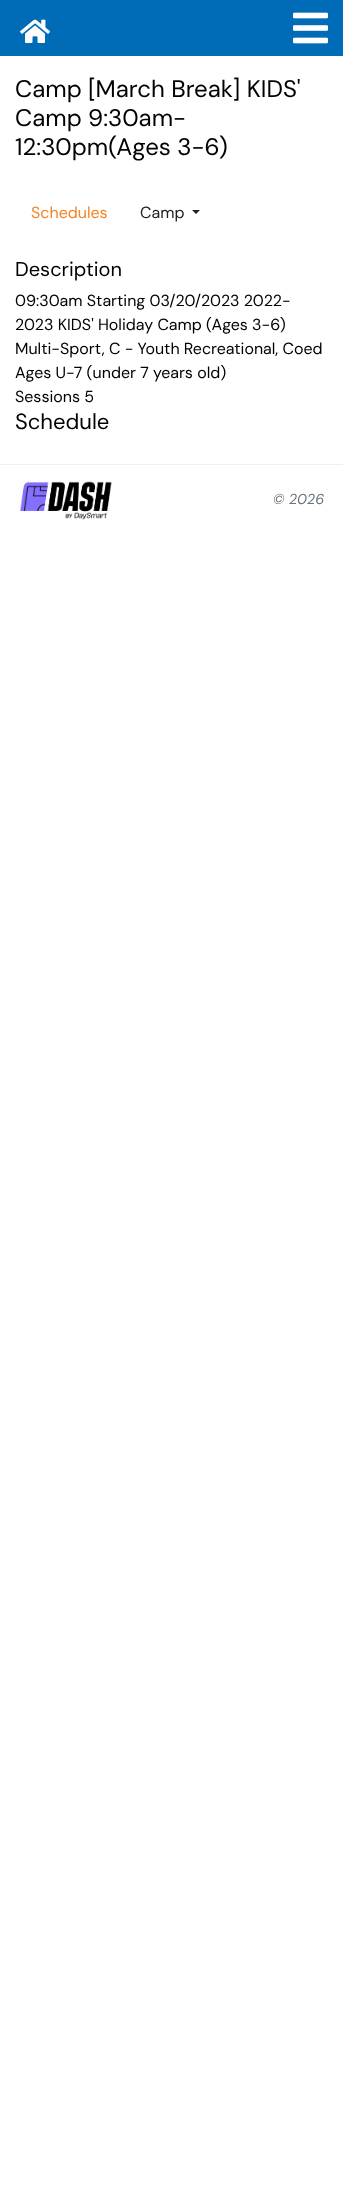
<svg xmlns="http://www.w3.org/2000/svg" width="343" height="2200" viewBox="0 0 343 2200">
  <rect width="100%" height="100%" fill="#ffffff"/>
  <rect x="0" y="0" width="343" height="56" fill="#006bb6"/>
  <image x="20" y="19" width="30" height="24" href="img1.png"/>
  <image x="293" y="12" width="35" height="32" href="img2.png"/>
  <text x="15" y="97" font-family="DM Sans" font-size="24" fill="#000000">Camp [March Break] KIDS'</text>
  <text x="15" y="126" font-family="DM Sans" font-size="24" fill="#000000">Camp 9:30am-</text>
  <text x="15" y="155" font-family="DM Sans" font-size="24" fill="#000000">12:30pm(Ages 3-6)</text>
  <text x="31" y="218" font-family="DM Sans" font-size="16" fill="#f58426">Schedules</text>
  <text x="140" y="218" font-family="DM Sans" font-size="16" fill="#222222">Camp</text>
  <path d="M192 210H200L196 214Z" fill="#222222"/>
  <text x="15" y="276" font-family="DM Sans" font-size="20" fill="#000000">Description</text>
  <text x="15" y="306" font-family="DM Sans" font-size="16" fill="#000000">09:30am Starting 03/20/2023 2022-</text>
  <text x="15" y="330" font-family="DM Sans" font-size="16" fill="#000000">2023 KIDS' Holiday Camp (Ages 3-6)</text>
  <text x="15" y="354" font-family="DM Sans" font-size="16" fill="#000000">Multi-Sport, C - Youth Recreational, Coed</text>
  <text x="15" y="378" font-family="DM Sans" font-size="16" fill="#000000">Ages U-7 (under 7 years old)</text>
  <text x="15" y="402" font-family="DM Sans" font-size="16" fill="#000000">Sessions 5</text>
  <text x="15" y="429" font-family="DM Sans" font-size="22" fill="#000000">Schedule</text>
  <rect x="0" y="464" width="343" height="1" fill="#eeeeee"/>
  <image x="19" y="481" width="93" height="39" href="img3.png"/>
  <text x="273" y="504" font-family="DM Sans" font-size="14.5" font-style="italic" fill="#6c757d">© 2026</text>
</svg>
